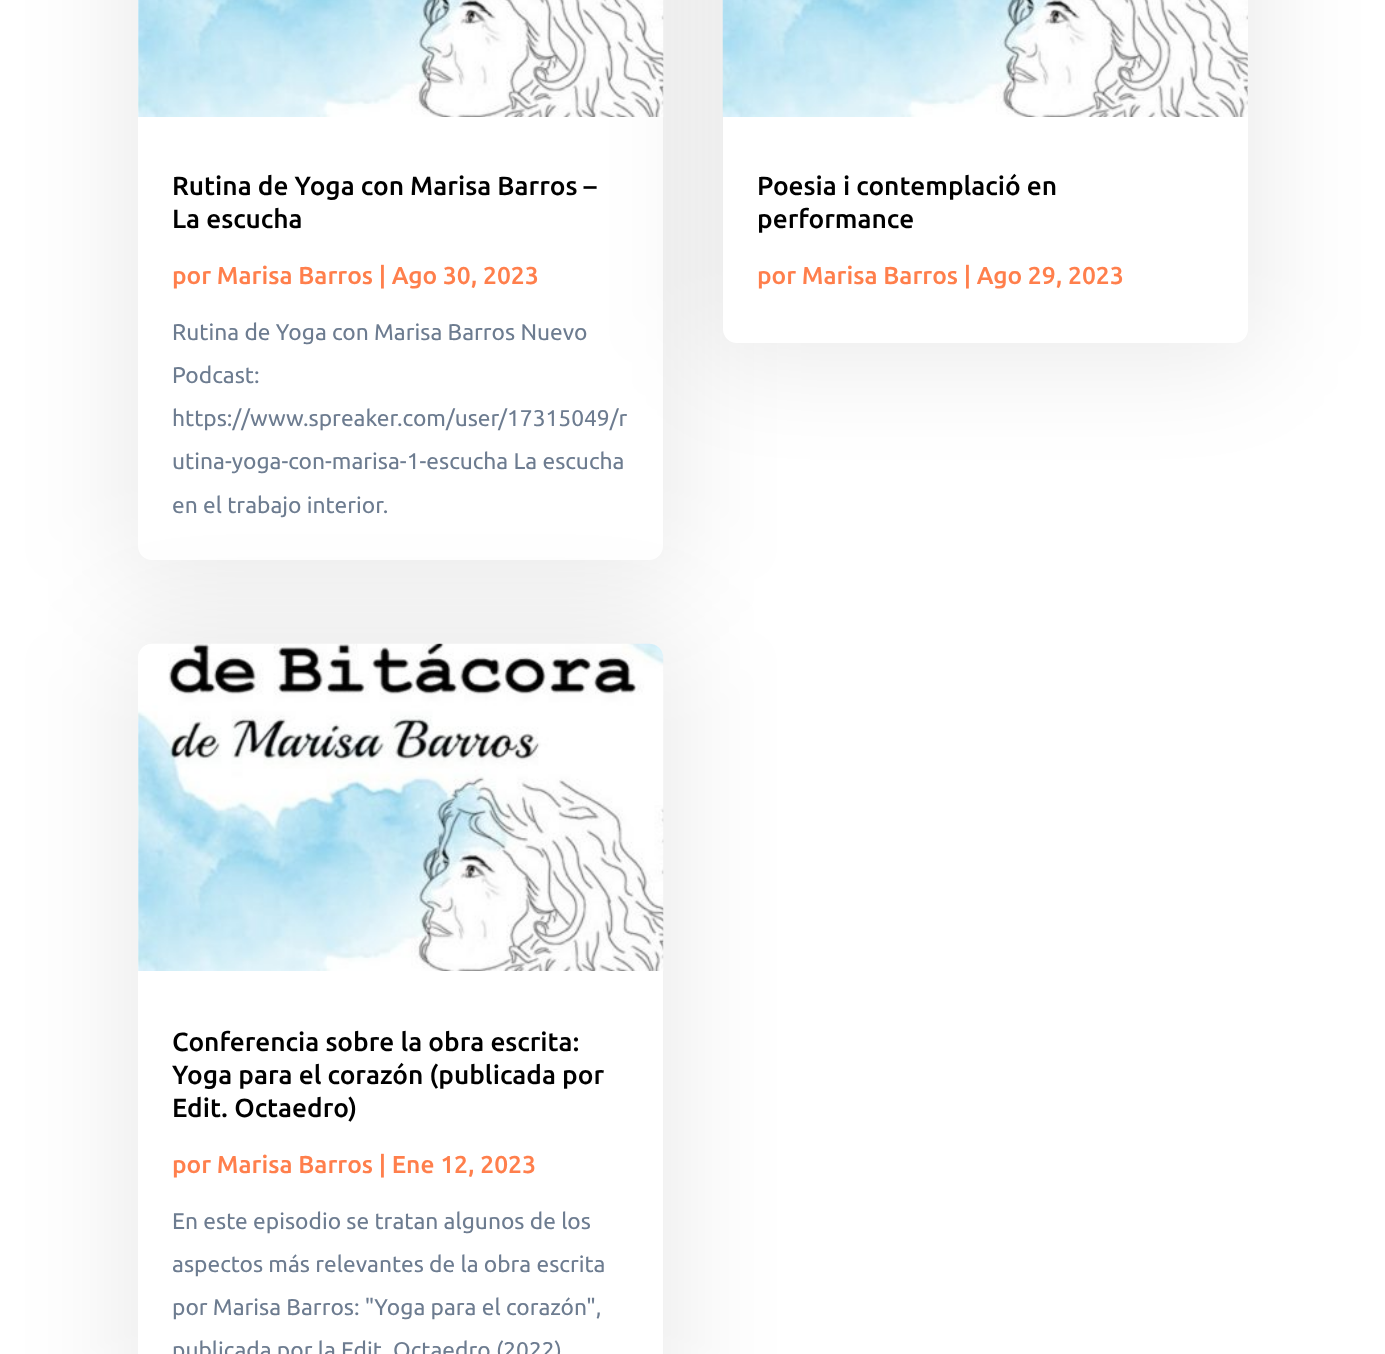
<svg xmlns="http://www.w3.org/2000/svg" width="1385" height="1354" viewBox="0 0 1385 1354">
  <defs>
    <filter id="blur1" x="-50%" y="-200%" width="200%" height="500%"><feGaussianBlur stdDeviation="52.5"/></filter>
  </defs>
  <rect width="100%" height="100%" fill="#ffffff"/>
  <rect x="121" y="-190" width="560" height="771" rx="32" fill="#000000" fill-opacity="0.08" filter="url(#blur1)"/>
  <rect x="138" y="-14" width="525" height="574" rx="14" fill="#ffffff"/>
  <rect x="705" y="-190" width="560" height="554" rx="32" fill="#000000" fill-opacity="0.08" filter="url(#blur1)"/>
  <image x="138" y="0" width="526" height="117" href="img1.png"/>
  <text x="172" y="195" font-family="Ubuntu" font-size="26.25" font-weight="500" fill="#000000">Rutina de Yoga con Marisa Barros –</text>
  <text x="172" y="228" font-family="Ubuntu" font-size="26.25" font-weight="500" fill="#000000">La escucha</text>
  <text x="172" y="284" font-family="Ubuntu" font-size="24.5" font-weight="500" fill="#ff7f4c">por Marisa Barros | Ago 30, 2023</text>
  <text x="172" y="340" font-family="Ubuntu" font-size="22.75" fill="#6d7c90">Rutina de Yoga con Marisa Barros Nuevo</text>
  <text x="172" y="383" font-family="Ubuntu" font-size="22.75" fill="#6d7c90">Podcast:</text>
  <text x="172" y="426" font-family="Ubuntu" font-size="22.75" fill="#6d7c90">https://www.spreaker.com/user/17315049/r</text>
  <text x="172" y="469" font-family="Ubuntu" font-size="22.75" fill="#6d7c90">utina-yoga-con-marisa-1-escucha La escucha</text>
  <text x="172" y="513" font-family="Ubuntu" font-size="22.75" fill="#6d7c90">en el trabajo interior.</text>
  <rect x="121" y="630" width="560" height="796" rx="32" fill="#000000" fill-opacity="0.08" filter="url(#blur1)"/>
  <rect x="138" y="644" width="525" height="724" rx="14" fill="#ffffff"/>
  <image x="138" y="643" width="526" height="328" href="img2.png"/>
  <text x="172" y="1051" font-family="Ubuntu" font-size="26.25" font-weight="500" fill="#000000">Conferencia sobre la obra escrita:</text>
  <text x="172" y="1084" font-family="Ubuntu" font-size="26.25" font-weight="500" fill="#000000">Yoga para el corazón (publicada por</text>
  <text x="172" y="1117" font-family="Ubuntu" font-size="26.25" font-weight="500" fill="#000000">Edit. Octaedro)</text>
  <text x="172" y="1173" font-family="Ubuntu" font-size="24.5" font-weight="500" fill="#ff7f4c">por Marisa Barros | Ene 12, 2023</text>
  <text x="172" y="1229" font-family="Ubuntu" font-size="22.75" fill="#6d7c90">En este episodio se tratan algunos de los</text>
  <text x="172" y="1272" font-family="Ubuntu" font-size="22.75" fill="#6d7c90">aspectos más relevantes de la obra escrita</text>
  <text x="172" y="1315" font-family="Ubuntu" font-size="22.75" fill="#6d7c90">por Marisa Barros: "Yoga para el corazón",</text>
  <text x="172" y="1358" font-family="Ubuntu" font-size="22.75" fill="#6d7c90">publicada por la Edit. Octaedro (2022)</text>
  <rect x="723" y="-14" width="525" height="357" rx="14" fill="#ffffff"/>
  <image x="722" y="0" width="526" height="117" href="img3.png"/>
  <text x="757" y="195" font-family="Ubuntu" font-size="26.25" font-weight="500" fill="#000000">Poesia i contemplació en</text>
  <text x="757" y="228" font-family="Ubuntu" font-size="26.25" font-weight="500" fill="#000000">performance</text>
  <text x="757" y="284" font-family="Ubuntu" font-size="24.5" font-weight="500" fill="#ff7f4c">por Marisa Barros | Ago 29, 2023</text>
</svg>
